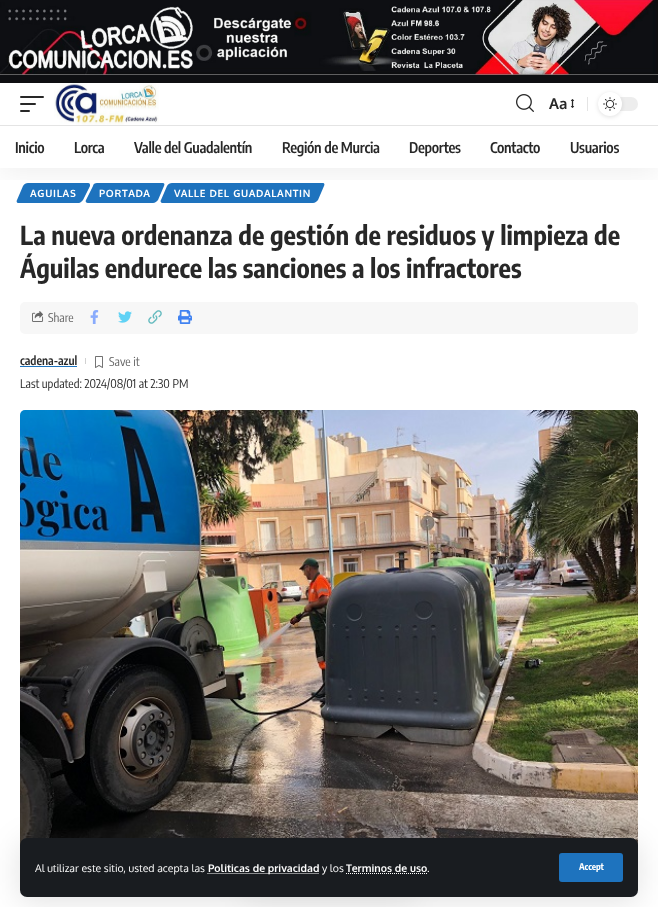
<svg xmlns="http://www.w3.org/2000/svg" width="658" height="907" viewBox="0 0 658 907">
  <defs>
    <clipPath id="clip1"><rect x="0" y="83" width="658" height="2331"/></clipPath>
    <clipPath id="clip2"><rect x="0" y="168" width="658" height="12"/></clipPath>
    <filter id="blur1" x="-50%" y="-200%" width="200%" height="500%"><feGaussianBlur stdDeviation="15"/></filter>
    <filter id="blur2" x="-50%" y="-200%" width="200%" height="500%"><feGaussianBlur stdDeviation="2"/></filter>
  </defs>
  <rect width="100%" height="100%" fill="#ffffff"/>
  <rect x="0" y="75" width="658" height="8" fill="#0e0f12"/>
  <image x="0" y="0" width="658" height="75" href="img1.png"/>
  <path d="M28 183H88C90 183 90 184 90 186L83 200C82 201 80 203 79 203H18C17 203 16 201 17 200L23 186C24 184 26 183 28 183Z" fill="#1e73be"/>
  <path d="M97 183H163C164 183 165 184 164 186L158 200C157 201 155 203 153 203H88C86 203 85 201 86 200L93 186C93 184 95 183 97 183Z" fill="#1e73be"/>
  <path d="M172 183H323C324 183 325 184 324 186L318 200C317 201 315 203 313 203H162C161 203 160 201 161 200L167 186C168 184 170 183 172 183Z" fill="#1e73be"/>
  <g clip-path="url(#clip1)">
    <g clip-path="url(#clip2)">
      <rect x="0" y="87" width="658" height="85" fill="#000000" fill-opacity="0.07" filter="url(#blur1)"/>
    </g>
  </g>
  <rect x="20" y="96" width="24" height="2" rx="1" fill="#282828"/>
  <rect x="20" y="103" width="16" height="2" rx="1" fill="#282828"/>
  <rect x="20" y="110" width="10" height="2" rx="1" fill="#282828"/>
  <image x="54" y="83" width="105" height="42" href="img2.png"/>
  <image x="516" y="94" width="18" height="18" href="img3.png"/>
  <text x="549" y="109" font-family="Oxygen" font-size="15" font-weight="bold" fill="#282828">Aa</text>
  <image x="570" y="99" width="5" height="9" href="img4.png"/>
  <rect x="587" y="97" width="1" height="14" fill="#e4e4e4"/>
  <rect x="598" y="97" width="40" height="14" rx="7" fill="#ededed"/>
  <rect x="598" y="93" width="24" height="24" rx="12" fill="#000000" fill-opacity="0.12" filter="url(#blur2)"/>
  <circle cx="610" cy="104" r="12" fill="#ffffff"/>
  <image x="603" y="97" width="14" height="14" href="img5.png"/>
  <rect x="0" y="125" width="658" height="1" fill="#e4e4e4"/>
  <text x="15" y="153" font-family="Encode Sans Condensed" font-size="14.75" font-weight="600" letter-spacing="-0.3" fill="#282828">Inicio</text>
  <text x="74" y="153" font-family="Encode Sans Condensed" font-size="14.75" font-weight="600" letter-spacing="-0.3" fill="#282828">Lorca</text>
  <text x="134" y="153" font-family="Encode Sans Condensed" font-size="14.75" font-weight="600" letter-spacing="-0.3" fill="#282828">Valle del Guadalentín</text>
  <text x="282" y="153" font-family="Encode Sans Condensed" font-size="14.75" font-weight="600" letter-spacing="-0.3" fill="#282828">Región de Murcia</text>
  <text x="409" y="153" font-family="Encode Sans Condensed" font-size="14.75" font-weight="600" letter-spacing="-0.3" fill="#282828">Deportes</text>
  <text x="490" y="153" font-family="Encode Sans Condensed" font-size="14.75" font-weight="600" letter-spacing="-0.3" fill="#282828">Contacto</text>
  <text x="570" y="153" font-family="Encode Sans Condensed" font-size="14.75" font-weight="600" letter-spacing="-0.3" fill="#282828">Usuarios</text>
  <image x="20" y="410" width="618" height="435" href="img12.png"/>
  <rect x="20" y="842" width="618" height="59" rx="7" fill="#000000" fill-opacity="0.12" filter="url(#blur1)"/>
  <rect x="245" y="858" width="168" height="44" rx="5" fill="#000000" fill-opacity="0.07" filter="url(#blur1)"/>
  <rect x="20" y="838" width="618" height="59" rx="7" fill="#191c20"/>
  <text x="35" y="872" font-family="Oxygen" font-size="10.5" fill="#ffffff">Al utilizar este sitio, usted acepta las</text>
  <path d="M207.5 873.5H319" fill="none" stroke="#ffffff" stroke-dasharray="1 1"/>
  <text x="208" y="872" font-family="Oxygen" font-size="10.5" font-weight="bold" fill="#ffffff">Politicas de privacidad</text>
  <text x="322" y="872" font-family="Oxygen" font-size="10.5" fill="#ffffff">y los</text>
  <text x="346" y="872" font-family="Oxygen" font-size="10.5" font-weight="bold" fill="#ffffff">Terminos de uso</text>
  <path d="M346 873.5H427" fill="none" stroke="#ffffff" stroke-dasharray="1 1"/>
  <text x="427" y="872" font-family="Oxygen" font-size="10.5" fill="#ffffff">.</text>
  <rect x="559" y="853" width="64" height="29" rx="3" fill="#1e73be"/>
  <text x="579" y="870" font-family="Encode Sans Condensed" font-size="9" font-weight="bold" fill="#ffffff">Accept</text>
  <text x="30" y="197" font-family="Oxygen" font-size="10" font-weight="bold" letter-spacing="0.7" fill="#ffffff">AGUILAS</text>
  <text x="99" y="197" font-family="Oxygen" font-size="10" font-weight="bold" letter-spacing="0.7" fill="#ffffff">PORTADA</text>
  <text x="174" y="197" font-family="Oxygen" font-size="10" font-weight="bold" letter-spacing="0.7" fill="#ffffff">VALLE DEL GUADALANTIN</text>
  <text x="20" y="245" font-family="Encode Sans Condensed" font-size="26" font-weight="bold" fill="#282828">La nueva ordenanza de gestión de residuos y limpieza de</text>
  <text x="20" y="278" font-family="Encode Sans Condensed" font-size="26" font-weight="bold" fill="#282828">Águilas endurece las sanciones a los infractores</text>
  <rect x="20" y="302" width="618" height="32" rx="5" fill="#f7f7f7"/>
  <image x="32" y="311" width="12" height="11" href="img6.png"/>
  <text x="48" y="322" font-family="Encode Sans Condensed" font-size="12" fill="#666666">Share</text>
  <image x="90" y="310" width="9" height="14" href="img7.png"/>
  <image x="118" y="311" width="14" height="12" href="img8.png"/>
  <image x="148" y="310" width="14" height="14" href="img9.png"/>
  <image x="178" y="310" width="14" height="14" href="img10.png"/>
  <text x="20" y="365" font-family="Encode Sans Condensed" font-size="12" font-weight="600" fill="#282828">cadena-azul</text>
  <rect x="20" y="366" width="57" height="1" fill="#1e73be"/>
  <rect x="85" y="358" width="1" height="6" fill="#d1d1d1"/>
  <image x="95" y="356" width="8" height="12" href="img11.png"/>
  <text x="109" y="366" font-family="Encode Sans Condensed" font-size="12" fill="#666666">Save it</text>
  <text x="20" y="388" font-family="Encode Sans Condensed" font-size="12" fill="#282828">Last updated: 2024/08/01 at 2:30 PM</text>
</svg>
